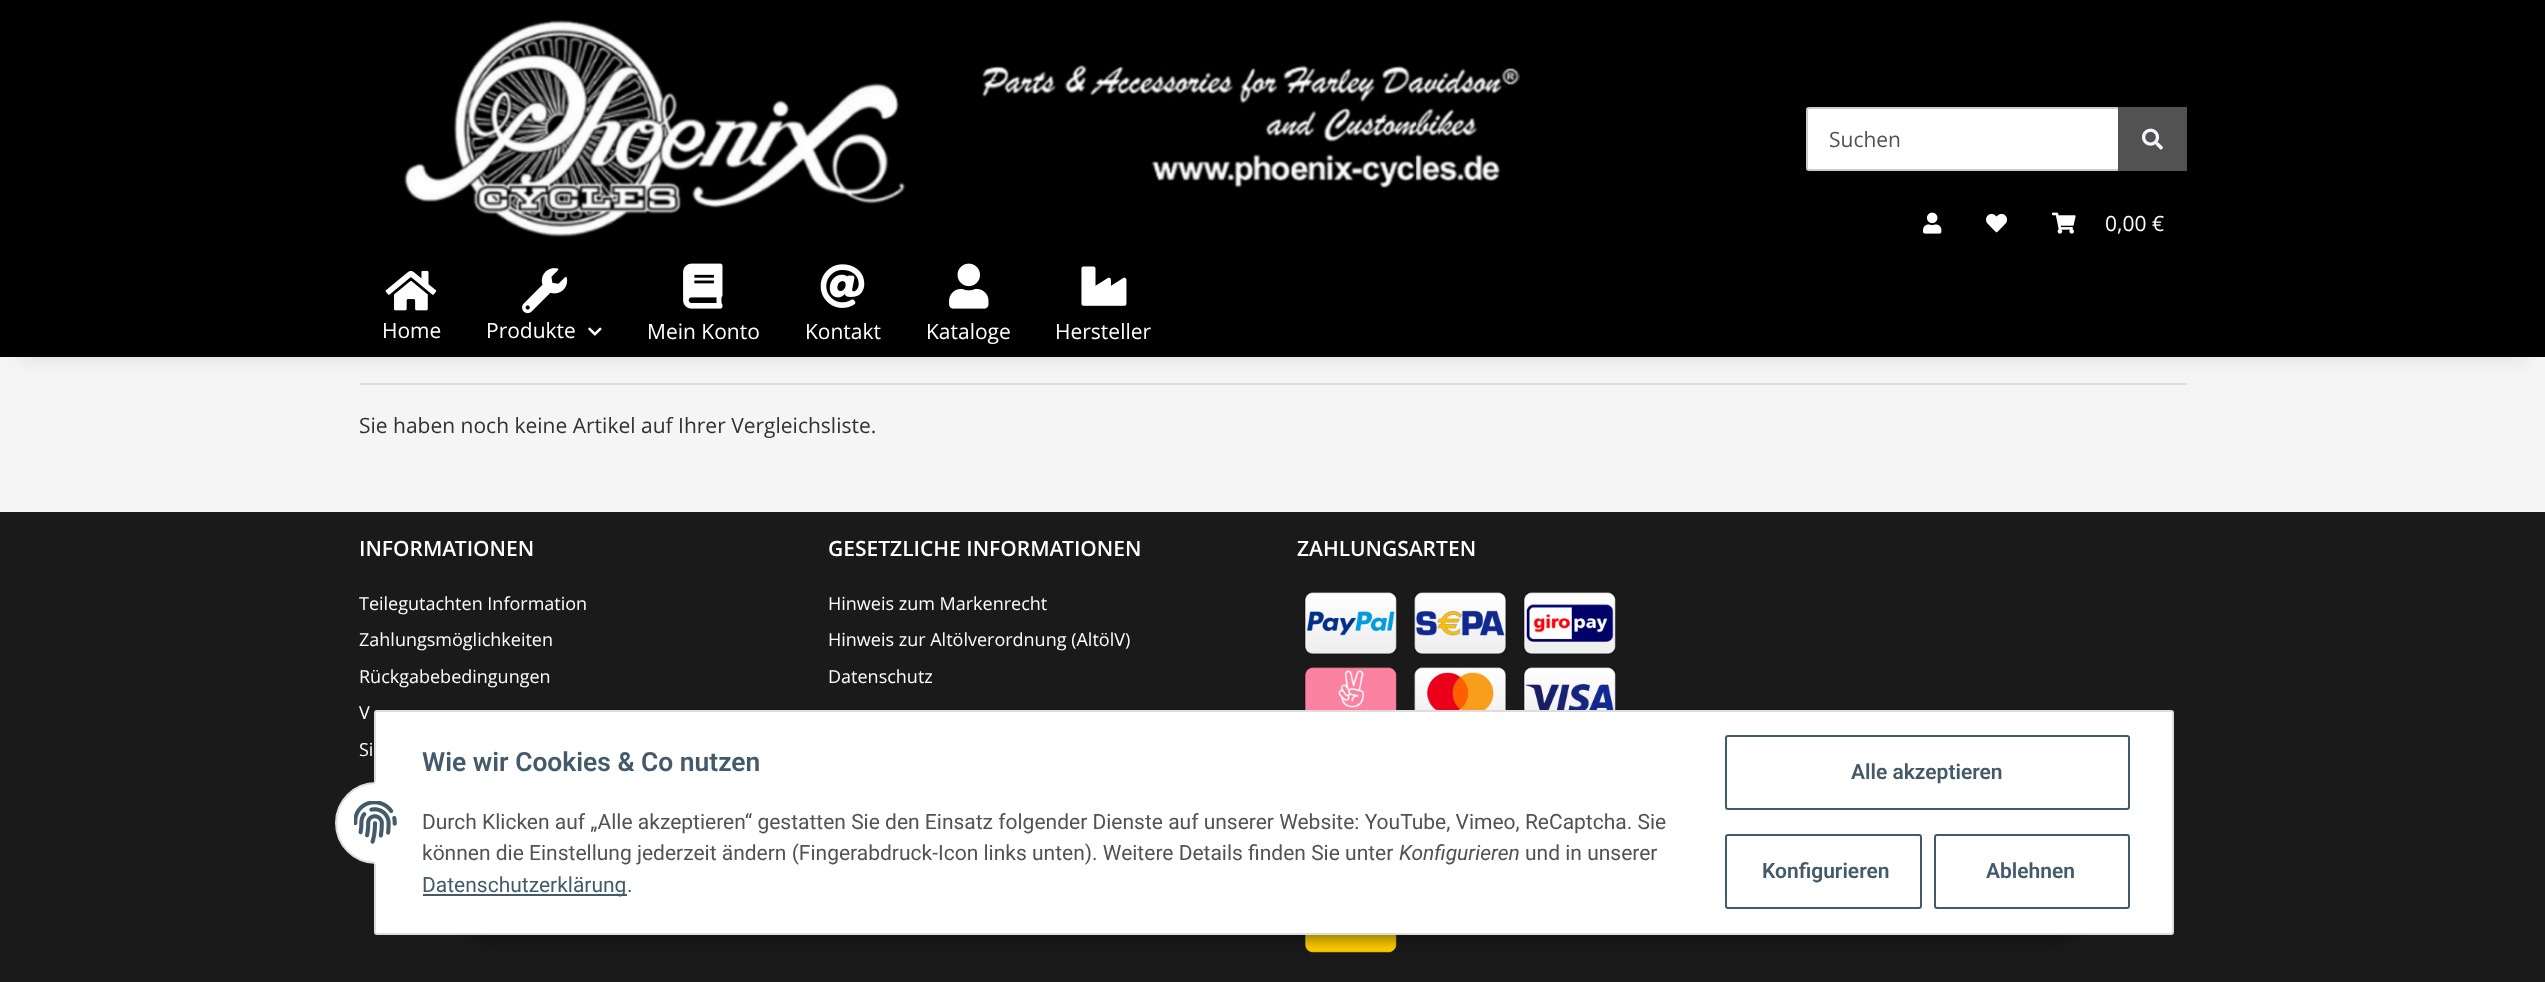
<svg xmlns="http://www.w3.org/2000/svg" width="2545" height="982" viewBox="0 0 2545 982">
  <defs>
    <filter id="blur1" x="-50%" y="-200%" width="200%" height="500%"><feGaussianBlur stdDeviation="7"/></filter>
    <filter id="blur2" x="-50%" y="-200%" width="200%" height="500%"><feGaussianBlur stdDeviation="7.5"/></filter>
  </defs>
  <rect width="100%" height="100%" fill="#f5f5f5"/>
  <rect x="360" y="383" width="1827" height="2" fill="#dddddd"/>
  <rect x="18" y="42" width="2510" height="321" fill="#000000" fill-opacity="0.06" filter="url(#blur1)"/>
  <rect x="0" y="0" width="2545" height="357" fill="#000000"/>
  <image x="404" y="20" width="502" height="218" href="img1.png"/>
  <image x="982" y="65" width="538" height="123" href="img2.png"/>
  <rect x="1808" y="109" width="310" height="60" fill="#ffffff"/>
  <rect x="1807" y="108" width="312" height="62" rx="2" fill="none" stroke="#cccccc" stroke-width="2"/>
  <text x="1829" y="147" font-family="Open Sans" font-size="21" fill="#525252">Suchen</text>
  <rect x="2118" y="107" width="69" height="64" fill="#525252"/>
  <image x="2142" y="128" width="21" height="22" href="img3.png"/>
  <image x="1923" y="212" width="19" height="22" href="img4.png"/>
  <image x="1986" y="213" width="21" height="20" href="img5.png"/>
  <image x="2052" y="212" width="24" height="22" href="img6.png"/>
  <text x="2105" y="231" font-family="Open Sans" font-size="21" fill="#ffffff">0,00 €</text>
  <image x="385" y="270" width="52" height="41" href="img7.png"/>
  <text x="382" y="338" font-family="Open Sans" font-size="21" fill="#ffffff">Home</text>
  <image x="522" y="268" width="46" height="46" href="img8.png"/>
  <text x="486" y="338" font-family="Open Sans" font-size="21" fill="#ffffff">Produkte</text>
  <image x="588" y="327" width="14" height="9" href="img9.png"/>
  <image x="683" y="263" width="40" height="46" href="img10.png"/>
  <text x="647" y="339" font-family="Open Sans" font-size="21" fill="#ffffff">Mein Konto</text>
  <image x="820" y="264" width="45" height="44" href="img11.png"/>
  <text x="805" y="339" font-family="Open Sans" font-size="21" fill="#ffffff">Kontakt</text>
  <image x="949" y="263" width="40" height="46" href="img12.png"/>
  <text x="926" y="339" font-family="Open Sans" font-size="21" fill="#ffffff">Kataloge</text>
  <image x="1081" y="266" width="46" height="40" href="img13.png"/>
  <text x="1055" y="339" font-family="Open Sans" font-size="21" fill="#ffffff">Hersteller</text>
  <text x="359" y="433" font-family="Open Sans" font-size="21" fill="#313131">Sie haben noch keine Artikel auf Ihrer Vergleichsliste.</text>
  <rect x="0" y="512" width="2545" height="470" fill="#1a1a1a"/>
  <text x="359" y="556" font-family="Open Sans" font-size="21" font-weight="600" fill="#ffffff">INFORMATIONEN</text>
  <text x="359" y="610" font-family="Open Sans" font-size="18" fill="#ffffff">Teilegutachten Information</text>
  <text x="359" y="646" font-family="Open Sans" font-size="18" fill="#ffffff">Zahlungsmöglichkeiten</text>
  <text x="359" y="683" font-family="Open Sans" font-size="18" fill="#ffffff">Rückgabebedingungen</text>
  <text x="359" y="719" font-family="Open Sans" font-size="18" fill="#ffffff">V</text>
  <text x="359" y="756" font-family="Open Sans" font-size="18" fill="#ffffff">Si</text>
  <text x="828" y="556" font-family="Open Sans" font-size="21" font-weight="600" fill="#ffffff">GESETZLICHE INFORMATIONEN</text>
  <text x="828" y="610" font-family="Open Sans" font-size="18" fill="#ffffff">Hinweis zum Markenrecht</text>
  <text x="828" y="646" font-family="Open Sans" font-size="18" fill="#ffffff">Hinweis zur Altölverordnung (AltölV)</text>
  <text x="828" y="683" font-family="Open Sans" font-size="18" fill="#ffffff">Datenschutz</text>
  <text x="1297" y="556" font-family="Open Sans" font-size="21" font-weight="600" fill="#ffffff">ZAHLUNGSARTEN</text>
  <image x="1304" y="592" width="93" height="63" href="img14.png"/>
  <image x="1414" y="592" width="93" height="63" href="img15.png"/>
  <image x="1523" y="592" width="93" height="63" href="img16.png"/>
  <image x="1304" y="667" width="93" height="43" href="img17.png"/>
  <image x="1414" y="667" width="93" height="43" href="img18.png"/>
  <image x="1523" y="667" width="93" height="43" href="img19.png"/>
  <image x="1304" y="935" width="93" height="18" href="img20.png"/>
  <rect x="464" y="891" width="1618" height="48" rx="24" fill="#000000" fill-opacity="0.45" filter="url(#blur2)"/>
  <rect x="375" y="711" width="1798" height="223" rx="2" fill="#ffffff" stroke="#dddddd" stroke-width="2"/>
  <circle cx="376" cy="823" r="40" fill="#ffffff" stroke="#dddddd" stroke-width="2"/>
  <rect x="375" y="782" width="42" height="82" fill="#ffffff"/>
  <image x="354" y="801" width="43" height="43" href="img21.png"/>
  <text x="422" y="771" font-family="Roboto" font-size="26.4" font-weight="600" fill="#435a6b">Wie wir Cookies &amp; Co nutzen</text>
  <text x="422" y="829" font-family="Roboto" font-size="21" fill="#525252">Durch Klicken auf „Alle akzeptieren“ gestatten Sie den Einsatz folgender Dienste auf unserer Website: YouTube, Vimeo, ReCaptcha. Sie</text>
  <text x="422" y="860" font-family="Roboto" font-size="21" fill="#525252">können die Einstellung jederzeit ändern (Fingerabdruck-Icon links unten). Weitere Details finden Sie unter</text>
  <text x="1399" y="860" font-family="Roboto" font-size="21" font-style="italic" fill="#525252">Konfigurieren</text>
  <text x="1525" y="860" font-family="Roboto" font-size="21" fill="#525252">und in unserer</text>
  <rect x="423" y="894" width="204" height="2" fill="#435a6b"/>
  <text x="422" y="892" font-family="Roboto" font-size="21" fill="#435a6b">Datenschutzerklärung</text>
  <text x="627" y="892" font-family="Roboto" font-size="21" fill="#525252">.</text>
  <rect x="1726" y="736" width="403" height="73" rx="2" fill="none" stroke="#435a6b" stroke-width="2"/>
  <text x="1851" y="779" font-family="Roboto" font-size="21" font-weight="600" fill="#435a6b">Alle akzeptieren</text>
  <rect x="1726" y="835" width="195" height="73" rx="2" fill="none" stroke="#435a6b" stroke-width="2"/>
  <text x="1762" y="878" font-family="Roboto" font-size="21" font-weight="600" fill="#435a6b">Konfigurieren</text>
  <rect x="1935" y="835" width="194" height="73" rx="2" fill="none" stroke="#435a6b" stroke-width="2"/>
  <text x="1986" y="878" font-family="Roboto" font-size="21" font-weight="600" fill="#435a6b">Ablehnen</text>
</svg>
